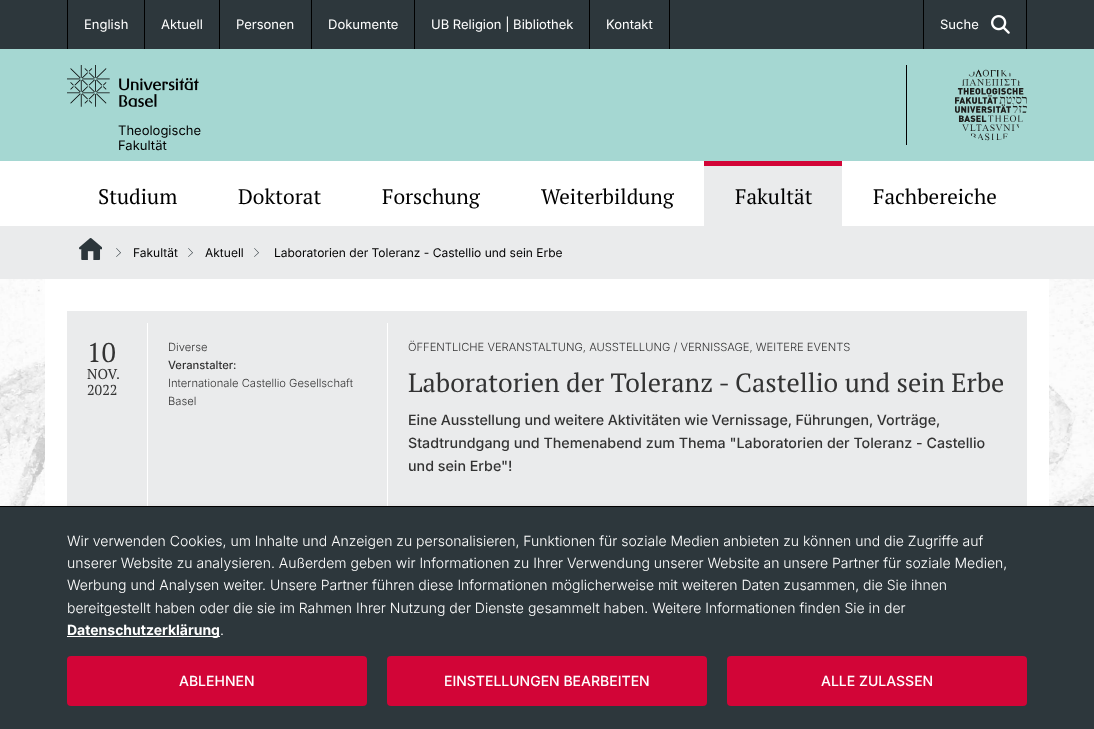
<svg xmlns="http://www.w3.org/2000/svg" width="1094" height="729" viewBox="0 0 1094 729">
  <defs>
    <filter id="blur1" x="-50%" y="-200%" width="200%" height="500%"><feGaussianBlur stdDeviation="5"/></filter>
  </defs>
  <rect width="100%" height="100%" fill="#ffffff"/>
  <image x="0" y="279" width="1094" height="227" href="img1.png"/>
  <rect x="0" y="0" width="1094" height="49" fill="#2d373c"/>
  <rect x="144" y="0" width="1" height="49" fill="#000000"/>
  <rect x="67" y="0" width="1" height="49" fill="#000000"/>
  <text x="84" y="29" font-family="Inter" font-size="13" fill="#ffffff">English</text>
  <rect x="219" y="0" width="1" height="49" fill="#000000"/>
  <text x="161" y="29" font-family="Inter" font-size="13" fill="#ffffff">Aktuell</text>
  <rect x="311" y="0" width="1" height="49" fill="#000000"/>
  <text x="236" y="29" font-family="Inter" font-size="13" fill="#ffffff">Personen</text>
  <rect x="414" y="0" width="1" height="49" fill="#000000"/>
  <text x="328" y="29" font-family="Inter" font-size="13" fill="#ffffff">Dokumente</text>
  <rect x="589" y="0" width="1" height="49" fill="#000000"/>
  <text x="431" y="29" font-family="Inter" font-size="13" fill="#ffffff">UB Religion | Bibliothek</text>
  <rect x="669" y="0" width="1" height="49" fill="#000000"/>
  <text x="606" y="29" font-family="Inter" font-size="13" fill="#ffffff">Kontakt</text>
  <rect x="1026" y="0" width="1" height="49" fill="#000000"/>
  <rect x="923" y="0" width="1" height="49" fill="#000000"/>
  <text x="940" y="29" font-family="Inter" font-size="13" fill="#ffffff">Suche</text>
  <image x="991" y="15" width="19" height="19" href="img2.png"/>
  <rect x="0" y="49" width="1094" height="112" fill="#a5d7d2"/>
  <image x="67" y="65" width="132" height="42" href="img3.png"/>
  <text x="118" y="135" font-family="Inter" font-size="13" fill="#000000">Theologische</text>
  <text x="118" y="150" font-family="Inter" font-size="13" fill="#000000">Fakultät</text>
  <rect x="906" y="65" width="1" height="80" fill="#000000"/>
  <image x="955" y="69" width="72" height="72" href="img4.png"/>
  <text x="98" y="204" font-family="PT Serif" font-size="21" fill="#000000">Studium</text>
  <text x="238" y="204" font-family="PT Serif" font-size="21" fill="#000000">Doktorat</text>
  <text x="382" y="204" font-family="PT Serif" font-size="21" fill="#000000">Forschung</text>
  <text x="541" y="204" font-family="PT Serif" font-size="21" fill="#000000">Weiterbildung</text>
  <rect x="704" y="166" width="138" height="60" fill="#eaebec"/>
  <rect x="704" y="161" width="138" height="5" fill="#d20537"/>
  <text x="735" y="204" font-family="PT Serif" font-size="21" fill="#000000">Fakultät</text>
  <text x="873" y="204" font-family="PT Serif" font-size="21" fill="#000000">Fachbereiche</text>
  <rect x="0" y="226" width="1094" height="53" fill="#eaebec"/>
  <image x="79" y="238" width="23" height="22" href="img5.png"/>
  <image x="116" y="248" width="5" height="9" href="img6.png"/>
  <text x="133" y="257" font-family="Inter" font-size="12" fill="#000000">Fakultät</text>
  <image x="188" y="248" width="5" height="9" href="img6.png"/>
  <text x="205" y="257" font-family="Inter" font-size="12" fill="#000000">Aktuell</text>
  <image x="254" y="248" width="5" height="9" href="img7.png"/>
  <text x="274" y="257" font-family="Inter" font-size="12" fill="#000000">Laboratorien der Toleranz - Castellio und sein Erbe</text>
  <rect x="45" y="279" width="1004" height="227" fill="#ffffff"/>
  <rect x="67" y="311" width="960" height="195" fill="#eaebec"/>
  <text x="87" y="362" font-family="PT Serif" font-size="27" fill="#333333">10</text>
  <text x="87" y="379" font-family="PT Serif" font-size="14.25" fill="#333333">NOV.</text>
  <text x="87" y="395" font-family="PT Serif" font-size="14.25" fill="#333333">2022</text>
  <rect x="147" y="323" width="1" height="183" fill="#ffffff"/>
  <text x="168" y="351" font-family="Inter" font-size="11.2" font-weight="300" fill="#333333">Diverse</text>
  <text x="168" y="369" font-family="Inter" font-size="11.2" font-weight="500" fill="#333333">Veranstalter:</text>
  <text x="168" y="387" font-family="Inter" font-size="11.2" font-weight="300" fill="#333333">Internationale Castellio Gesellschaft</text>
  <text x="168" y="405" font-family="Inter" font-size="11.2" font-weight="300" fill="#333333">Basel</text>
  <rect x="387" y="323" width="1" height="183" fill="#ffffff"/>
  <text x="408" y="351" font-family="Inter" font-size="11.2" font-weight="300" fill="#333333">ÖFFENTLICHE VERANSTALTUNG, AUSSTELLUNG / VERNISSAGE, WEITERE EVENTS</text>
  <text x="408" y="392" font-family="PT Serif" font-size="26.4" fill="#333333">Laboratorien der Toleranz - Castellio und sein Erbe</text>
  <text x="408" y="425" word-spacing="-0.25" font-family="Inter" font-size="14.25" font-weight="500" fill="#333333">Eine Ausstellung und weitere Aktivitäten wie Vernissage, Führungen, Vorträge,</text>
  <text x="408" y="448" font-family="Inter" font-size="14.25" font-weight="500" fill="#333333">Stadtrundgang und Themenabend zum Thema "Laboratorien der Toleranz - Castellio</text>
  <text x="408" y="471" font-family="Inter" font-size="14.25" font-weight="500" fill="#333333">und sein Erbe"!</text>
  <rect x="5" y="511" width="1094" height="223" fill="#000000" fill-opacity="0.19" filter="url(#blur1)"/>
  <rect x="0" y="507" width="1094" height="222" fill="#2d373c"/>
  <rect x="0" y="506" width="1094" height="1" fill="#000000"/>
  <text x="67" y="546" font-family="Inter" font-size="14" font-weight="300" fill="#ffffff">Wir verwenden Cookies, um Inhalte und Anzeigen zu personalisieren, Funktionen für soziale Medien anbieten zu können und die Zugriffe auf</text>
  <text x="67" y="568" font-family="Inter" font-size="14" font-weight="300" fill="#ffffff">unserer Website zu analysieren. Außerdem geben wir Informationen zu Ihrer Verwendung unserer Website an unsere Partner für soziale Medien,</text>
  <text x="67" y="590" font-family="Inter" font-size="14" font-weight="300" fill="#ffffff">Werbung und Analysen weiter. Unsere Partner führen diese Informationen möglicherweise mit weiteren Daten zusammen, die Sie ihnen</text>
  <text x="67" y="613" font-family="Inter" font-size="14" font-weight="300" fill="#ffffff">bereitgestellt haben oder die sie im Rahmen Ihrer Nutzung der Dienste gesammelt haben. Weitere Informationen finden Sie in der</text>
  <rect x="67" y="636" width="153" height="1" fill="#ffffff"/>
  <text x="67" y="635" font-family="Inter" font-size="14" font-weight="bold" fill="#ffffff">Datenschutzerklärung</text>
  <text x="220" y="635" font-family="Inter" font-size="14" font-weight="300" fill="#ffffff">.</text>
  <rect x="67" y="656" width="300" height="50" rx="4" fill="#d20537"/>
  <text x="179" y="686" font-family="Inter" font-size="14" font-weight="500" fill="#ffffff">ABLEHNEN</text>
  <rect x="727" y="656" width="300" height="50" rx="4" fill="#d20537"/>
  <text x="821" y="686" font-family="Inter" font-size="14" font-weight="500" fill="#ffffff">ALLE ZULASSEN</text>
  <rect x="387" y="656" width="320" height="50" rx="4" fill="#d20537"/>
  <text x="444" y="686" font-family="Inter" font-size="14" font-weight="500" fill="#ffffff">EINSTELLUNGEN BEARBEITEN</text>
</svg>
